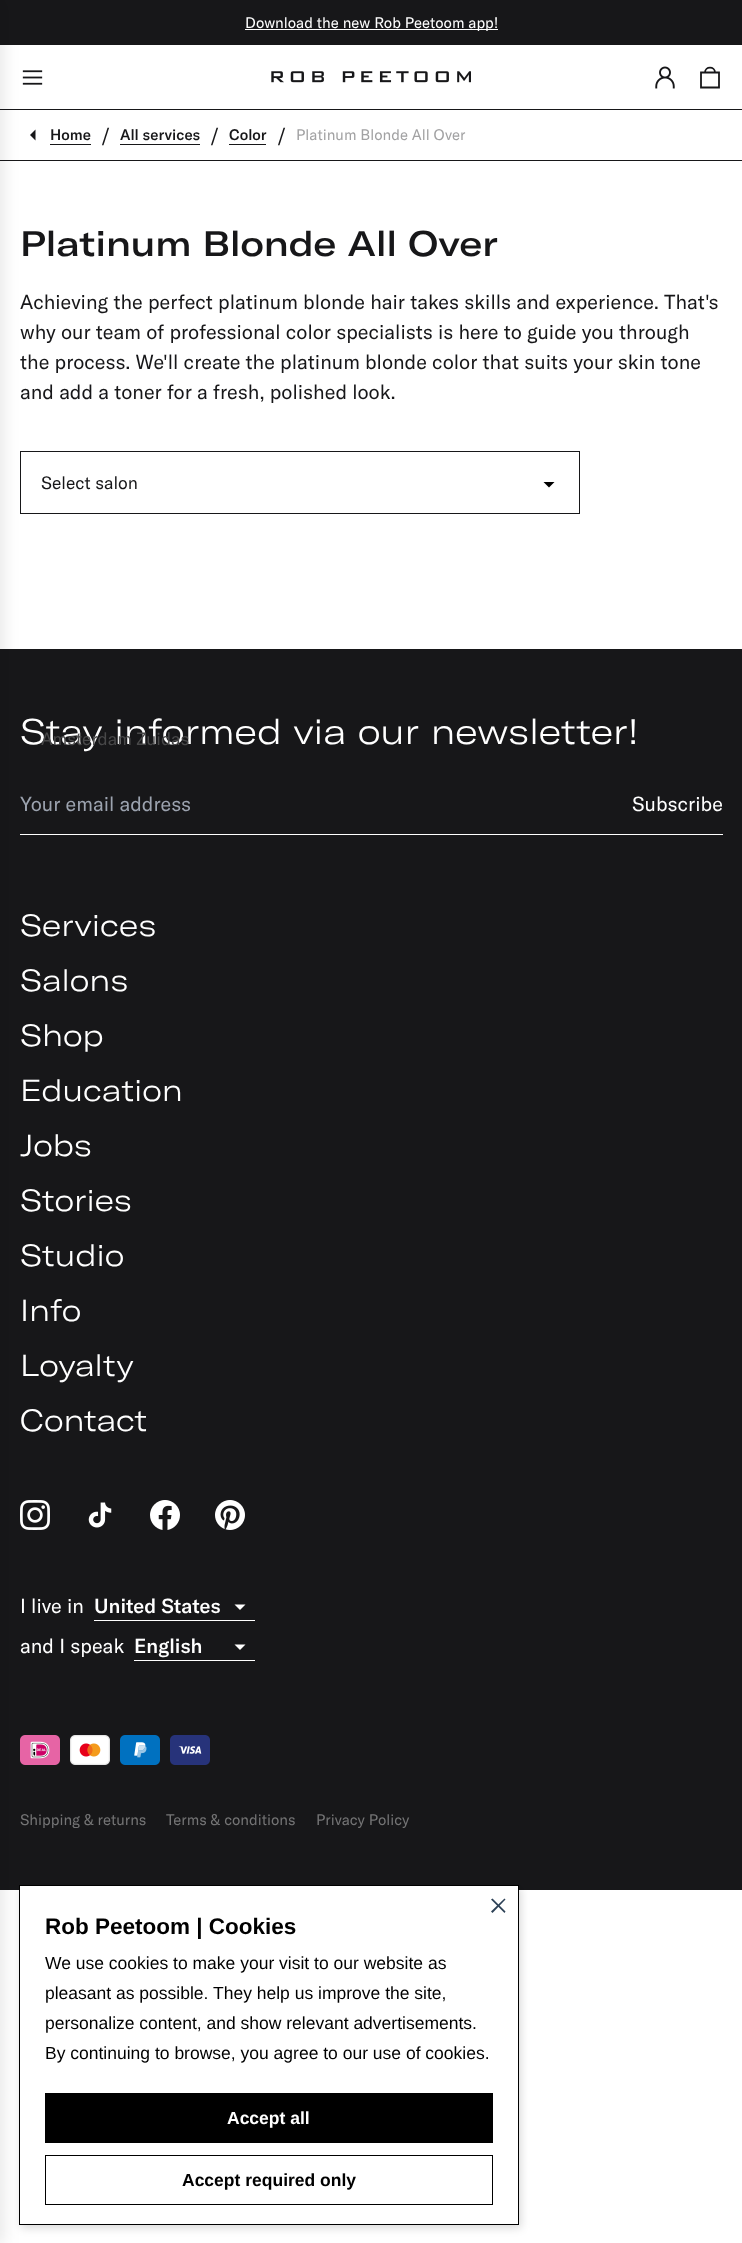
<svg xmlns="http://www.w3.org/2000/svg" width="742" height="2243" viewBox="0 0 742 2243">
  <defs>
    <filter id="blur1" x="-50%" y="-200%" width="200%" height="500%"><feGaussianBlur stdDeviation="7.5"/></filter>
    <filter id="blur2" x="-50%" y="-200%" width="200%" height="500%"><feGaussianBlur stdDeviation="4"/></filter>
  </defs>
  <rect width="100%" height="100%" fill="#ffffff"/>
  <rect x="0" y="109" width="742" height="1" fill="#171719"/>
  <image x="22" y="70" width="21" height="15" href="img1.png"/>
  <rect x="0" y="0" width="742" height="45" fill="#171719"/>
  <rect x="0" y="160" width="742" height="1" fill="#171719"/>
  <rect x="20.5" y="451.5" width="559" height="62" fill="none" stroke="#171719"/>
  <rect x="0" y="649" width="742" height="1241" fill="#171719"/>
  <rect x="20" y="834" width="703" height="1" fill="#ffffff"/>
  <image x="20" y="1500" width="30" height="30" href="img4.png"/>
  <image x="20" y="1735" width="40" height="30" href="img8.png"/>
  <rect x="-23" y="0" width="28" height="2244" fill="#171719" fill-opacity="0.08" filter="url(#blur1)"/>
  <image x="271" y="71" width="200" height="12" href="img2.png"/>
  <image x="655" y="66" width="20" height="23" href="img3.png"/>
  <path d="M719 72.5H701V87.5H719ZM705 72.5C705 66 715 66 715 72.5" fill="none" stroke="#171719" stroke-width="1.8" stroke-linecap="square"/>
  <rect x="245" y="29" width="253" height="1" fill="#ffffff"/>
  <text x="245" y="28" font-family="GT America" font-size="15" fill="#ffffff">Download the new Rob Peetoom app!</text>
  <path d="M30 135L35.5 140.5V129.5Z" fill="#171719"/>
  <text x="50" y="140" font-family="'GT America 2'" font-size="15" font-weight="500" fill="#171719">Home</text>
  <rect x="50" y="144" width="41" height="1" fill="#171719"/>
  <text x="101" y="143" font-family="GT America" font-size="20" fill="#171719">/</text>
  <text x="120" y="140" font-family="'GT America 2'" font-size="15" font-weight="500" fill="#171719">All services</text>
  <rect x="120" y="144" width="80" height="1" fill="#171719"/>
  <text x="210" y="143" font-family="GT America" font-size="20" fill="#171719">/</text>
  <text x="229" y="140" font-family="'GT America 2'" font-size="15" font-weight="500" fill="#171719">Color</text>
  <rect x="229" y="144" width="37" height="1" fill="#171719"/>
  <text x="277" y="143" font-family="GT America" font-size="20" fill="#171719">/</text>
  <text x="296" y="140" font-family="GT America" font-size="15" fill="#a2a2a3">Platinum Blonde All Over</text>
  <text x="20" y="256" font-family="GT America" font-size="35" font-weight="500" fill="#171719">Platinum Blonde All Over</text>
  <text x="20" y="309" font-family="GT America" font-size="20" fill="#171719">Achieving the perfect platinum blonde hair takes skills and experience. That's</text>
  <text x="20" y="339" font-family="GT America" font-size="20" fill="#171719">why our team of professional color specialists is here to guide you through</text>
  <text x="20" y="369" font-family="GT America" font-size="20" fill="#171719">the process. We'll create the platinum blonde color that suits your skin tone</text>
  <text x="20" y="399" font-family="GT America" font-size="20" fill="#171719">and add a toner for a fresh, polished look.</text>
  <text x="41" y="489" font-family="GT America" font-size="17.5" fill="#171719">Select salon</text>
  <path d="M549 487.5L554.5 482H543.5Z" fill="#000000"/>
  <text x="20" y="744" font-family="GT America" font-size="35" font-weight="300" fill="#ffffff">Stay informed via our newsletter!</text>
  <text x="41" y="745" font-family="GT America" font-size="17.5" fill="#484849">Amsterdam Zuidas</text>
  <text x="20" y="811" font-family="GT America" font-size="20" fill="#9ca3af">Your email address</text>
  <text x="632" y="811" font-family="GT America" font-size="20" fill="#ffffff">Subscribe</text>
  <text x="20" y="936" font-family="GT America" font-size="30" font-weight="300" fill="#ffffff">Services</text>
  <text x="20" y="991" font-family="GT America" font-size="30" font-weight="300" fill="#ffffff">Salons</text>
  <text x="20" y="1046" font-family="GT America" font-size="30" font-weight="300" fill="#ffffff">Shop</text>
  <text x="20" y="1101" font-family="GT America" font-size="30" font-weight="300" fill="#ffffff">Education</text>
  <text x="20" y="1156" font-family="GT America" font-size="30" font-weight="300" fill="#ffffff">Jobs</text>
  <text x="20" y="1211" font-family="GT America" font-size="30" font-weight="300" fill="#ffffff">Stories</text>
  <text x="20" y="1266" font-family="GT America" font-size="30" font-weight="300" fill="#ffffff">Studio</text>
  <text x="20" y="1321" font-family="GT America" font-size="30" font-weight="300" fill="#ffffff">Info</text>
  <text x="20" y="1376" font-family="GT America" font-size="30" font-weight="300" fill="#ffffff">Loyalty</text>
  <text x="20" y="1431" font-family="GT America" font-size="30" font-weight="300" fill="#ffffff">Contact</text>
  <image x="88" y="1502" width="24" height="26" href="img5.png"/>
  <image x="150" y="1500" width="30" height="30" href="img6.png"/>
  <image x="215" y="1500" width="30" height="30" href="img7.png"/>
  <text x="20" y="1613" font-family="GT America" font-size="20" fill="#ffffff">I live in</text>
  <rect x="94" y="1620" width="161" height="1" fill="#ffffff"/>
  <text x="94" y="1613" font-family="'GT America 2'" font-size="20" font-weight="500" fill="#ffffff">United States</text>
  <path d="M240 1610L245.5 1604.5H234.5Z" fill="#ffffff"/>
  <text x="20" y="1653" font-family="GT America" font-size="20" fill="#ffffff">and I speak</text>
  <rect x="134" y="1660" width="121" height="1" fill="#ffffff"/>
  <text x="134" y="1653" font-family="'GT America 2'" font-size="20" font-weight="500" fill="#ffffff">English</text>
  <path d="M240 1650L245.5 1644.5H234.5Z" fill="#ffffff"/>
  <image x="70" y="1735" width="40" height="30" href="img9.png"/>
  <image x="120" y="1735" width="40" height="30" href="img10.png"/>
  <image x="170" y="1735" width="40" height="30" href="img11.png"/>
  <text x="20" y="1825" font-family="GT America" font-size="15" fill="#747475">Shipping &amp; returns</text>
  <text x="166" y="1825" font-family="GT America" font-size="15" fill="#747475">Terms &amp; conditions</text>
  <text x="316" y="1825" font-family="GT America" font-size="15" fill="#747475">Privacy Policy</text>
  <rect x="21" y="1888" width="500" height="340" fill="#000000" fill-opacity="0.15" filter="url(#blur2)"/>
  <rect x="19.5" y="1885.5" width="499" height="339" fill="#ffffff" stroke="#000000"/>
  <path d="M504.5 1898.5L505.5 1899.5L492.5 1913L491 1911.5Z" fill="#2d4156"/>
  <path d="M491 1899.5L492.5 1898.5L505.5 1911.5L504.5 1913Z" fill="#2d4156"/>
  <text x="45" y="1934" font-family="Liberation Sans" font-size="22.5" font-weight="bold" fill="#000000">Rob Peetoom | Cookies</text>
  <text x="45" y="1969" font-family="Liberation Sans" font-size="17.5" fill="#000000">We use cookies to make your visit to our website as</text>
  <text x="45" y="1999" font-family="Liberation Sans" font-size="17.5" fill="#000000">pleasant as possible. They help us improve the site,</text>
  <text x="45" y="2029" font-family="Liberation Sans" font-size="17.5" fill="#000000">personalize content, and show relevant advertisements.</text>
  <text x="45" y="2059" font-family="Liberation Sans" font-size="17.5" fill="#000000">By continuing to browse, you agree to our use of cookies.</text>
  <rect x="45" y="2093" width="448" height="50" fill="#000000"/>
  <text x="227" y="2124" font-family="Liberation Sans" font-size="17.5" font-weight="bold" fill="#ffffff">Accept all</text>
  <rect x="45.5" y="2155.5" width="447" height="49" fill="none" stroke="#000000"/>
  <text x="182" y="2186" font-family="Liberation Sans" font-size="17.5" font-weight="bold" fill="#000000">Accept required only</text>
</svg>
